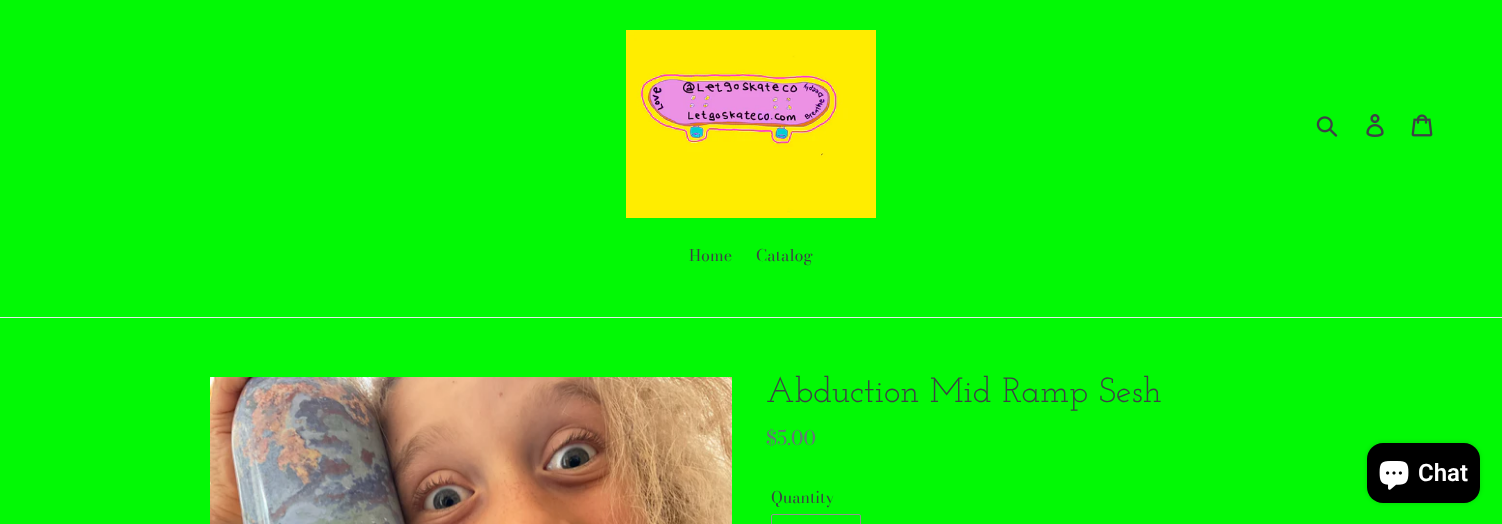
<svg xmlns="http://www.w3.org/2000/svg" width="1502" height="524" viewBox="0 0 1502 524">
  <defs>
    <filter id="blur1" x="-50%" y="-200%" width="200%" height="500%"><feGaussianBlur stdDeviation="2.5"/></filter>
  </defs>
  <rect width="100%" height="100%" fill="#02f905"/>
  <image x="626" y="30" width="250" height="188" href="img1.png"/>
  <image x="1316" y="116" width="22" height="21" href="img2.png"/>
  <image x="1366" y="114" width="18" height="23" href="img3.png"/>
  <image x="1411" y="114" width="22" height="23" href="img4.png"/>
  <rect x="0" y="317" width="1502" height="1" fill="#e8e9eb"/>
  <text x="689" y="261" font-family="Bodoni Moda" font-size="16" fill="#3d4246">Home</text>
  <text x="756" y="261" font-family="Bodoni Moda" font-size="16" fill="#3d4246">Catalog</text>
  <image x="210" y="377" width="522" height="147" href="img5.png"/>
  <text x="766" y="402" font-family="Josefin Slab" font-size="35" fill="#3d4246">Abduction Mid Ramp Sesh</text>
  <text x="766" y="445" font-family="'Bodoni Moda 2'" font-size="20" fill="#69727b">$5.00</text>
  <text x="771" y="503" font-family="Bodoni Moda" font-size="16" fill="#3d4246">Quantity</text>
  <rect x="771.5" y="514.5" width="89" height="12" rx="1.5" fill="none" stroke="#949494"/>
  <rect x="1367" y="443" width="113" height="60" rx="16" fill="#000000" fill-opacity="0.15" filter="url(#blur1)"/>
  <rect x="1367" y="443" width="113" height="60" rx="16" fill="#000000"/>
  <image x="1379" y="461" width="30" height="29" href="img6.png"/>
  <text x="1418" y="481" font-family="Roboto" font-size="24" font-weight="600" fill="#ffffff">Chat</text>
</svg>
